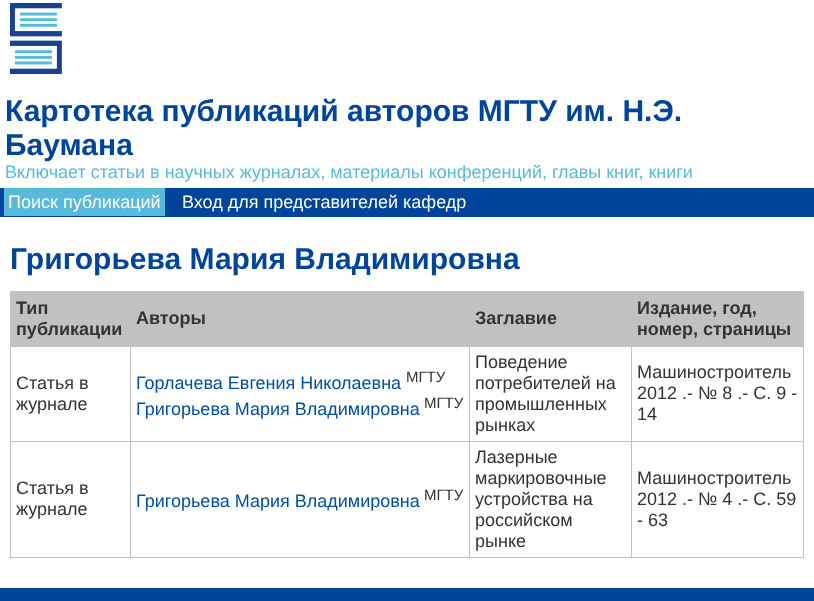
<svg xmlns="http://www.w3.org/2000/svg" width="814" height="601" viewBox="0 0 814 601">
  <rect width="100%" height="100%" fill="#ffffff"/>
  <image x="10" y="3" width="52" height="71" href="img1.png"/>
  <text x="5" y="121" font-family="Liberation Sans" font-size="30" font-weight="bold" fill="#01449b">Картотека публикаций авторов МГТУ им. Н.Э.</text>
  <text x="5" y="155" font-family="Liberation Sans" font-size="30" font-weight="bold" fill="#01449b">Баумана</text>
  <text x="5" y="178" font-family="Liberation Sans" font-size="18" fill="#58bada">Включает статьи в научных журналах, материалы конференций, главы книг, книги</text>
  <rect x="0" y="188" width="814" height="29" fill="#01449b"/>
  <rect x="4" y="188" width="161" height="28" fill="#58bada"/>
  <text x="8" y="208" font-family="Liberation Sans" font-size="18" fill="#ffffff">Поиск публикаций</text>
  <text x="182" y="208" font-family="Liberation Sans" font-size="18" fill="#ffffff">Вход для представителей кафедр</text>
  <text x="10" y="269" font-family="Liberation Sans" font-size="30" font-weight="bold" fill="#01449b">Григорьева Мария Владимировна</text>
  <rect x="11" y="292" width="119" height="54" fill="#c1c1c1"/>
  <rect x="130" y="291" width="674" height="55" fill="#c1c1c1"/>
  <rect x="10" y="291" width="121" height="1" fill="#c1c1c1"/>
  <rect x="631" y="346" width="173" height="1" fill="#c1c1c1"/>
  <rect x="631" y="441" width="173" height="1" fill="#c1c1c1"/>
  <rect x="803" y="441" width="1" height="117" fill="#c1c1c1"/>
  <rect x="631" y="557" width="173" height="1" fill="#c1c1c1"/>
  <rect x="631" y="441" width="1" height="117" fill="#c1c1c1"/>
  <rect x="469" y="441" width="163" height="1" fill="#c1c1c1"/>
  <rect x="631" y="346" width="1" height="96" fill="#c1c1c1"/>
  <rect x="469" y="346" width="163" height="1" fill="#c1c1c1"/>
  <rect x="469" y="557" width="163" height="1" fill="#c1c1c1"/>
  <rect x="469" y="441" width="1" height="117" fill="#c1c1c1"/>
  <rect x="130" y="441" width="340" height="1" fill="#c1c1c1"/>
  <rect x="469" y="346" width="1" height="96" fill="#c1c1c1"/>
  <rect x="130" y="346" width="340" height="1" fill="#c1c1c1"/>
  <rect x="130" y="557" width="340" height="1" fill="#c1c1c1"/>
  <rect x="130" y="441" width="1" height="117" fill="#c1c1c1"/>
  <rect x="10" y="441" width="121" height="1" fill="#c1c1c1"/>
  <rect x="130" y="346" width="1" height="96" fill="#c1c1c1"/>
  <rect x="10" y="346" width="121" height="1" fill="#c1c1c1"/>
  <rect x="10" y="557" width="121" height="1" fill="#c1c1c1"/>
  <rect x="10" y="441" width="1" height="117" fill="#c1c1c1"/>
  <rect x="10" y="346" width="1" height="96" fill="#c1c1c1"/>
  <rect x="10" y="291" width="1" height="56" fill="#c1c1c1"/>
  <text x="16" y="314" font-family="Liberation Sans" font-size="18" font-weight="bold" fill="#333333">Тип</text>
  <text x="16" y="335" font-family="Liberation Sans" font-size="18" font-weight="bold" fill="#333333">публикации</text>
  <text x="136" y="324" font-family="Liberation Sans" font-size="18" font-weight="bold" fill="#333333">Авторы</text>
  <text x="475" y="324" font-family="Liberation Sans" font-size="18" font-weight="bold" fill="#333333">Заглавие</text>
  <text x="637" y="314" font-family="Liberation Sans" font-size="18" font-weight="bold" fill="#333333">Издание, год,</text>
  <text x="637" y="335" font-family="Liberation Sans" font-size="18" font-weight="bold" fill="#333333">номер, страницы</text>
  <text x="16" y="389" font-family="Liberation Sans" font-size="18" fill="#333333">Статья в</text>
  <text x="16" y="410" font-family="Liberation Sans" font-size="18" fill="#333333">журнале</text>
  <text x="136" y="389" font-family="Liberation Sans" font-size="18" fill="#004e9f">Горлачева Евгения Николаевна</text>
  <text x="406" y="382" font-family="Liberation Sans" font-size="15" fill="#333333">МГТУ</text>
  <text x="136" y="415" font-family="Liberation Sans" font-size="18" fill="#004e9f">Григорьева Мария Владимировна</text>
  <text x="424" y="408" font-family="Liberation Sans" font-size="15" fill="#333333">МГТУ</text>
  <text x="475" y="368" font-family="Liberation Sans" font-size="18" fill="#333333">Поведение</text>
  <text x="475" y="389" font-family="Liberation Sans" font-size="18" fill="#333333">потребителей на</text>
  <text x="475" y="410" font-family="Liberation Sans" font-size="18" fill="#333333">промышленных</text>
  <text x="475" y="431" font-family="Liberation Sans" font-size="18" fill="#333333">рынках</text>
  <rect x="803" y="346" width="1" height="96" fill="#c1c1c1"/>
  <text x="637" y="378" font-family="Liberation Sans" font-size="18" fill="#333333">Машиностроитель</text>
  <text x="637" y="399" font-family="Liberation Sans" font-size="18" fill="#333333">2012 .- № 8 .- С. 9 -</text>
  <text x="637" y="420" font-family="Liberation Sans" font-size="18" fill="#333333">14</text>
  <text x="16" y="494" font-family="Liberation Sans" font-size="18" fill="#333333">Статья в</text>
  <text x="16" y="515" font-family="Liberation Sans" font-size="18" fill="#333333">журнале</text>
  <text x="136" y="507" font-family="Liberation Sans" font-size="18" fill="#004e9f">Григорьева Мария Владимировна</text>
  <text x="424" y="500" font-family="Liberation Sans" font-size="15" fill="#333333">МГТУ</text>
  <text x="475" y="463" font-family="Liberation Sans" font-size="18" fill="#333333">Лазерные</text>
  <text x="475" y="484" font-family="Liberation Sans" font-size="18" fill="#333333">маркировочные</text>
  <text x="475" y="505" font-family="Liberation Sans" font-size="18" fill="#333333">устройства на</text>
  <text x="475" y="526" font-family="Liberation Sans" font-size="18" fill="#333333">российском</text>
  <text x="475" y="547" font-family="Liberation Sans" font-size="18" fill="#333333">рынке</text>
  <text x="637" y="484" font-family="Liberation Sans" font-size="18" fill="#333333">Машиностроитель</text>
  <text x="637" y="505" font-family="Liberation Sans" font-size="18" fill="#333333">2012 .- № 4 .- С. 59</text>
  <text x="637" y="526" font-family="Liberation Sans" font-size="18" fill="#333333">- 63</text>
  <rect x="0" y="588" width="814" height="13" fill="#01449b"/>
</svg>
